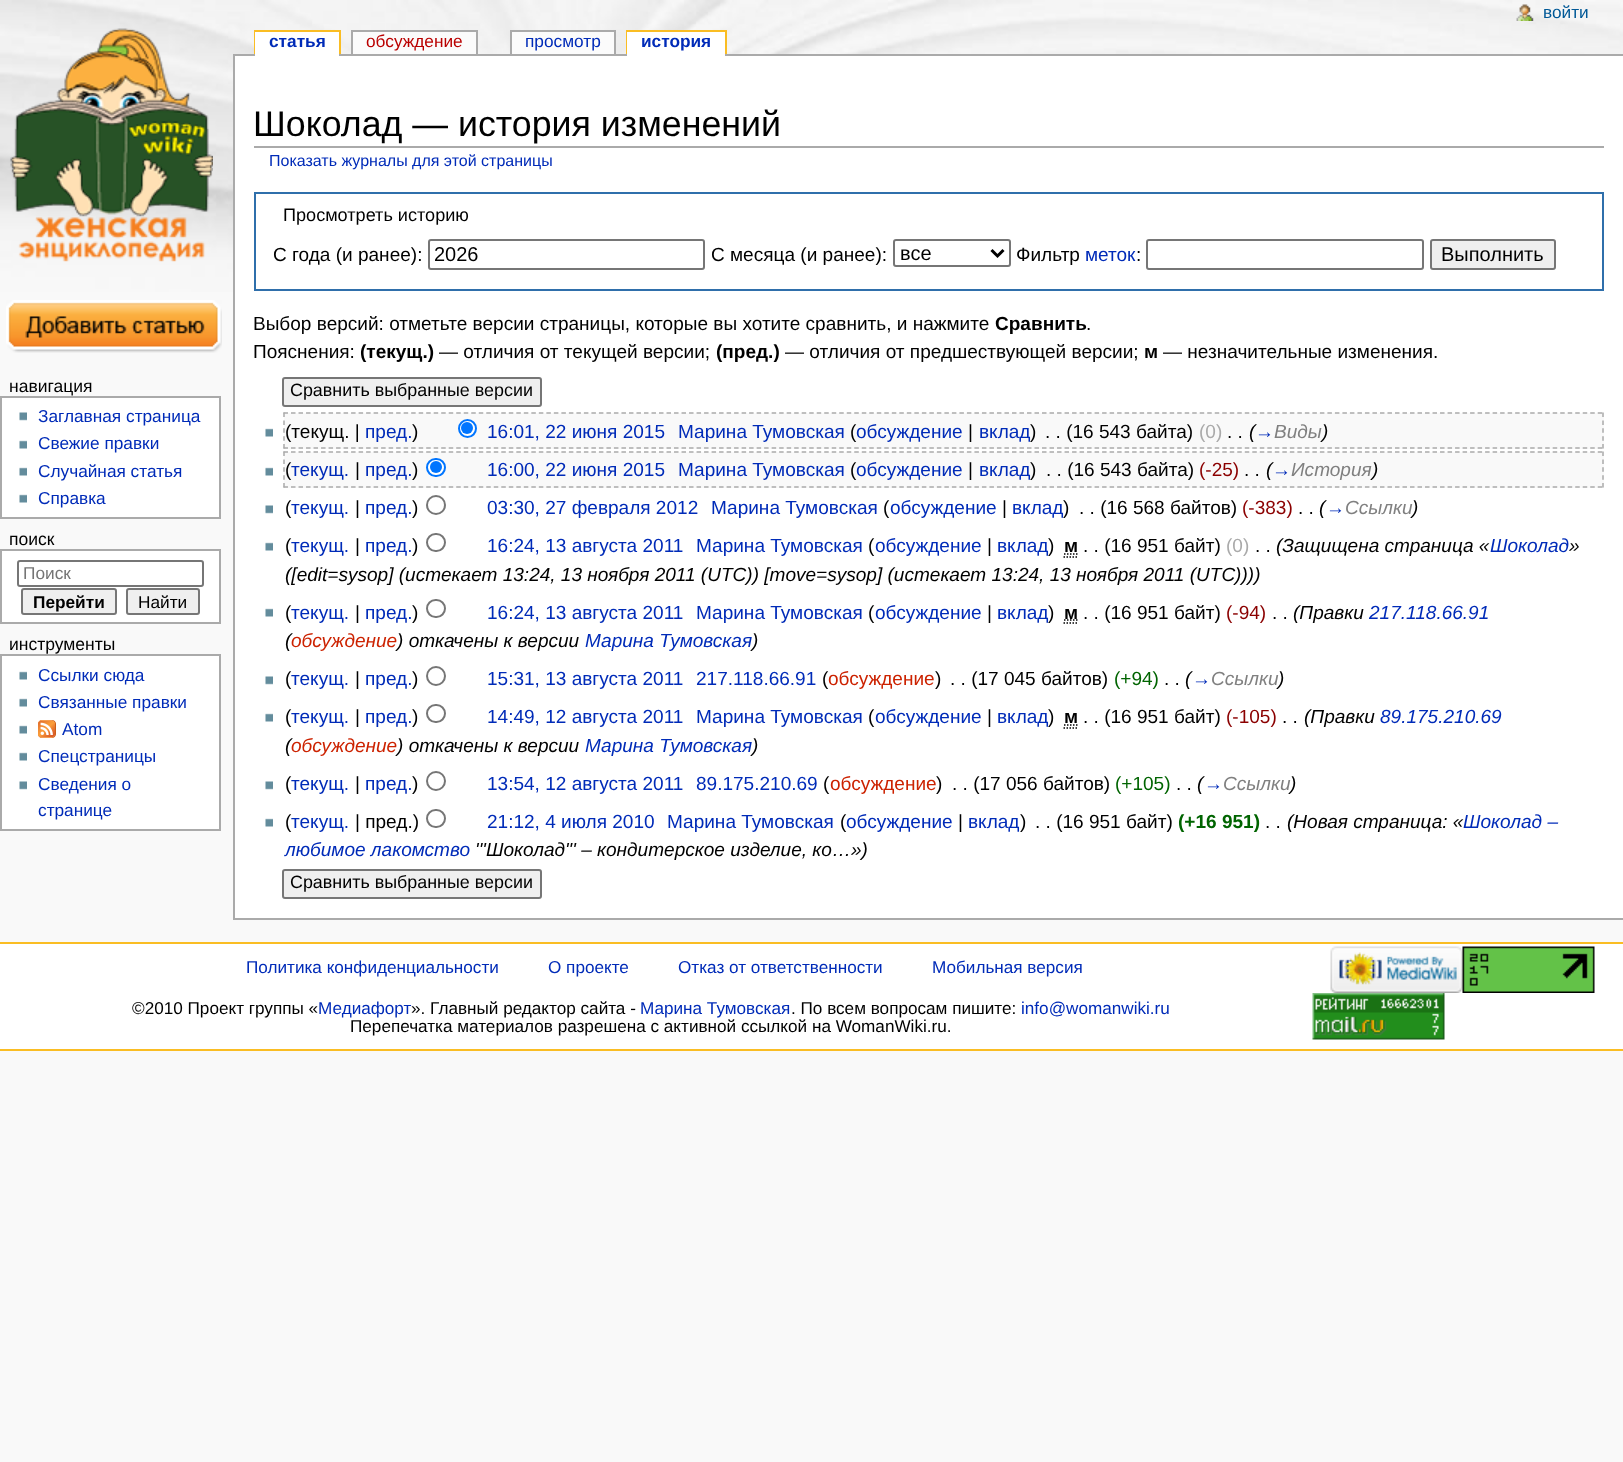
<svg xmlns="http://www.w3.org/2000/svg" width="1623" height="1462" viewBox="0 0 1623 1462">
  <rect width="100%" height="100%" fill="#f9f9f9"/>
  <image x="0" y="0" width="1623" height="292" href="img1.png"/>
  <image x="1516" y="4" width="18" height="17" href="img2.png"/>
  <text x="1543" y="18" font-family="Liberation Sans" font-size="17.25" fill="#005896">войти</text>
  <image x="10" y="28" width="203" height="234" href="img3.png"/>
  <rect x="254" y="30" width="87" height="2" fill="#fabd23"/>
  <rect x="254" y="30" width="2" height="24" fill="#fabd23"/>
  <rect x="233" y="54" width="1390" height="2" fill="#aaaaaa"/>
  <rect x="255" y="32" width="84" height="24" fill="#ffffff"/>
  <text x="269" y="47" font-family="Liberation Sans" font-size="17.25" font-weight="bold" fill="#002bb8">статья</text>
  <rect x="339" y="30" width="2" height="24" fill="#fabd23"/>
  <rect x="353" y="32" width="123" height="22" fill="#fbfbfb"/>
  <text x="366" y="47" font-family="Liberation Sans" font-size="17.25" fill="#ba0000">обсуждение</text>
  <rect x="351" y="30" width="126" height="2" fill="#aaaaaa"/>
  <rect x="476" y="30" width="2" height="24" fill="#aaaaaa"/>
  <rect x="351" y="30" width="2" height="24" fill="#aaaaaa"/>
  <rect x="512" y="32" width="102" height="22" fill="#fbfbfb"/>
  <text x="525" y="47" font-family="Liberation Sans" font-size="17.25" fill="#002bb8">просмотр</text>
  <rect x="510" y="30" width="105" height="2" fill="#aaaaaa"/>
  <rect x="614" y="30" width="2" height="24" fill="#aaaaaa"/>
  <rect x="510" y="30" width="2" height="24" fill="#aaaaaa"/>
  <rect x="626" y="30" width="100" height="2" fill="#fabd23"/>
  <rect x="626" y="30" width="2" height="24" fill="#fabd23"/>
  <rect x="627" y="32" width="98" height="24" fill="#ffffff"/>
  <text x="641" y="47" font-family="Liberation Sans" font-size="17.25" font-weight="bold" fill="#002bb8">история</text>
  <rect x="725" y="30" width="2" height="24" fill="#fabd23"/>
  <image x="6" y="300" width="216" height="53" href="img4.png"/>
  <text x="9" y="392" font-family="Liberation Sans" font-size="17.5" fill="#000000">навигация</text>
  <rect x="1" y="397" width="219" height="121" fill="#ffffff" stroke="#aaaaaa" stroke-width="2"/>
  <image x="19" y="412" width="8" height="9" href="img5.png"/>
  <text x="38" y="422" font-family="Liberation Sans" font-size="17.25" fill="#002bb8">Заглавная страница</text>
  <image x="19" y="440" width="8" height="9" href="img6.png"/>
  <text x="38" y="449" font-family="Liberation Sans" font-size="17.25" fill="#002bb8">Свежие правки</text>
  <image x="19" y="467" width="8" height="9" href="img6.png"/>
  <text x="38" y="477" font-family="Liberation Sans" font-size="17.25" fill="#002bb8">Случайная статья</text>
  <image x="19" y="494" width="8" height="9" href="img6.png"/>
  <text x="38" y="504" font-family="Liberation Sans" font-size="17.25" fill="#002bb8">Справка</text>
  <text x="9" y="545" font-family="Liberation Sans" font-size="17.5" fill="#000000">поиск</text>
  <rect x="1" y="550" width="219" height="73" fill="#ffffff" stroke="#aaaaaa" stroke-width="2"/>
  <rect x="18" y="561" width="185" height="25" rx="2" fill="none" stroke="#767676" stroke-width="2"/>
  <text x="23" y="579" font-family="Liberation Sans" font-size="17.25" fill="#757575">Поиск</text>
  <rect x="22" y="589" width="94" height="25" rx="2" fill="#efefef" stroke="#767676" stroke-width="2"/>
  <text x="33" y="608" font-family="Liberation Sans" font-size="17.25" font-weight="bold" fill="#000000">Перейти</text>
  <rect x="127" y="589" width="72" height="25" rx="2" fill="#efefef" stroke="#767676" stroke-width="2"/>
  <text x="138" y="608" font-family="Liberation Sans" font-size="17.25" fill="#000000">Найти</text>
  <text x="9" y="650" font-family="Liberation Sans" font-size="17.5" fill="#000000">инструменты</text>
  <rect x="1" y="655" width="219" height="175" fill="#ffffff" stroke="#aaaaaa" stroke-width="2"/>
  <image x="19" y="671" width="8" height="9" href="img6.png"/>
  <text x="38" y="681" font-family="Liberation Sans" font-size="17.25" fill="#002bb8">Ссылки сюда</text>
  <image x="19" y="698" width="8" height="9" href="img6.png"/>
  <text x="38" y="708" font-family="Liberation Sans" font-size="17.25" fill="#002bb8">Связанные правки</text>
  <image x="19" y="725" width="8" height="9" href="img6.png"/>
  <image x="38" y="720" width="18" height="18" href="img7.png"/>
  <text x="62" y="735" font-family="Liberation Sans" font-size="17.25" fill="#002bb8">Atom</text>
  <image x="19" y="752" width="8" height="9" href="img6.png"/>
  <text x="38" y="762" font-family="Liberation Sans" font-size="17.25" fill="#002bb8">Спецстраницы</text>
  <image x="19" y="781" width="8" height="9" href="img5.png"/>
  <text x="38" y="790" font-family="Liberation Sans" font-size="17.25" fill="#002bb8">Сведения о</text>
  <text x="38" y="816" font-family="Liberation Sans" font-size="17.25" fill="#002bb8">странице</text>
  <rect x="235" y="56" width="1388" height="862" fill="#ffffff"/>
  <rect x="233" y="918" width="1390" height="2" fill="#aaaaaa"/>
  <rect x="233" y="54" width="2" height="866" fill="#aaaaaa"/>
  <rect x="254" y="146" width="1350" height="2" fill="#aaaaaa"/>
  <text x="253" y="136" font-family="Liberation Sans" font-size="35.75" fill="#000000">Шоколад — история изменений</text>
  <text x="269" y="166" font-family="Liberation Sans" font-size="16" fill="#002bb8">Показать журналы для этой страницы</text>
  <rect x="255" y="193" width="1348" height="97" fill="none" stroke="#2f6fab" stroke-width="2"/>
  <text x="283" y="221" font-family="Liberation Sans" font-size="18.1" fill="#000000">Просмотреть историю</text>
  <text x="273" y="261" font-family="Liberation Sans" font-size="19.05" fill="#000000">С года (и ранее):</text>
  <rect x="429" y="240" width="275" height="29" rx="2" fill="none" stroke="#767676" stroke-width="2"/>
  <text x="434" y="261" font-family="Liberation Sans" font-size="20" fill="#000000">2026</text>
  <text x="711" y="261" font-family="Liberation Sans" font-size="19.05" fill="#000000">С месяца (и ранее):</text>
  <rect x="894" y="240" width="116" height="26" rx="2" fill="none" stroke="#767676" stroke-width="2"/>
  <path d="M991.5 250L997.5 256L1003.5 250" fill="none" stroke="#000000" stroke-width="3"/>
  <text x="900" y="260" font-family="Liberation Sans" font-size="20" fill="#000000">все</text>
  <text x="1016" y="261" font-family="Liberation Sans" font-size="19.05" fill="#000000">Фильтр</text>
  <text x="1085" y="261" font-family="Liberation Sans" font-size="19.05" fill="#002bb8">меток</text>
  <text x="1136" y="261" font-family="Liberation Sans" font-size="19.05" fill="#000000">:</text>
  <rect x="1147" y="240" width="276" height="29" rx="2" fill="none" stroke="#767676" stroke-width="2"/>
  <rect x="1431" y="240" width="124" height="29" rx="2" fill="#efefef" stroke="#767676" stroke-width="2"/>
  <text x="1441" y="261" font-family="Liberation Sans" font-size="20" fill="#000000">Выполнить</text>
  <text x="253" y="330" font-family="Liberation Sans" font-size="19.05" fill="#000000">Выбор версий: отметьте версии страницы, которые вы хотите сравнить, и нажмите</text>
  <text x="995" y="330" font-family="Liberation Sans" font-size="19.05" font-weight="bold" fill="#000000">Сравнить</text>
  <text x="1086" y="330" font-family="Liberation Sans" font-size="19.05" fill="#000000">.</text>
  <text x="253" y="358" font-family="Liberation Sans" font-size="19.05" fill="#000000">Пояснения:</text>
  <text x="360" y="358" font-family="Liberation Sans" font-size="19.05" font-weight="bold" fill="#000000">(текущ.)</text>
  <text x="439" y="358" font-family="Liberation Sans" font-size="19.05" fill="#000000">— отличия от текущей версии;</text>
  <text x="716" y="358" font-family="Liberation Sans" font-size="19.05" font-weight="bold" fill="#000000">(пред.)</text>
  <text x="785" y="358" font-family="Liberation Sans" font-size="19.05" fill="#000000">— отличия от предшествующей версии;</text>
  <text x="1144" y="358" font-family="Liberation Sans" font-size="19.05" font-weight="bold" fill="#000000">м</text>
  <text x="1163" y="358" font-family="Liberation Sans" font-size="19.05" fill="#000000">— незначительные изменения.</text>
  <rect x="283" y="378" width="258" height="28" rx="2" fill="#efefef" stroke="#767676" stroke-width="2"/>
  <text x="290" y="396" font-family="Liberation Sans" font-size="17.9" fill="#000000">Сравнить выбранные версии</text>
  <rect x="284" y="413" width="1320" height="36" fill="#f9f9f9"/>
  <path d="M283.5 413H1603.5" fill="none" stroke="#aaaaaa" stroke-width="1.5" stroke-dasharray="4.5 3.01"/>
  <path d="M1603 412.5V448.5" fill="none" stroke="#aaaaaa" stroke-width="1.5" stroke-dasharray="4.5 3.38"/>
  <path d="M283.5 448H1603.5" fill="none" stroke="#aaaaaa" stroke-width="1.5" stroke-dasharray="4.5 3.01"/>
  <path d="M284 412.5V448.5" fill="none" stroke="#aaaaaa" stroke-width="1.5" stroke-dasharray="4.5 3.38"/>
  <image x="265" y="428" width="8" height="9" href="img6.png"/>
  <text x="285" y="438" font-family="Liberation Sans" font-size="19.05" fill="#000000">(текущ. |</text>
  <text x="365" y="438" font-family="Liberation Sans" font-size="19.05" fill="#002bb8">пред.</text>
  <text x="412" y="438" font-family="Liberation Sans" font-size="19.05" fill="#000000">)</text>
  <circle cx="467.5" cy="428.5" r="8.5" fill="#ffffff" stroke="#0075ff" stroke-width="2"/>
  <circle cx="467" cy="428" r="6" fill="#0075ff"/>
  <text x="487" y="438" font-family="Liberation Sans" font-size="19.05" fill="#002bb8">16:01, 22 июня 2015</text>
  <text x="678" y="438" font-family="Liberation Sans" font-size="19.05" fill="#002bb8">Марина Тумовская</text>
  <text x="850" y="438" font-family="Liberation Sans" font-size="19.05" fill="#000000">(</text>
  <text x="856" y="438" font-family="Liberation Sans" font-size="19.05" fill="#002bb8">обсуждение</text>
  <text x="968" y="438" font-family="Liberation Sans" font-size="19.05" fill="#000000">|</text>
  <text x="979" y="438" font-family="Liberation Sans" font-size="19.05" fill="#002bb8">вклад</text>
  <text x="1030" y="438" font-family="Liberation Sans" font-size="19.05" fill="#000000">)</text>
  <text x="1045" y="438" font-family="Liberation Sans" font-size="19.05" fill="#000000">. . (16 543 байта)</text>
  <text x="1199" y="438" font-family="Liberation Sans" font-size="19.05" fill="#aaaaaa">(0)</text>
  <text x="1227" y="438" font-family="Liberation Sans" font-size="19.05" fill="#000000">. .</text>
  <text x="1249" y="438" font-family="Liberation Sans" font-size="19.05" font-style="italic" fill="#000000">(</text>
  <text x="1255" y="438" font-family="Liberation Sans" font-size="19.05" font-style="italic" fill="#002bb8">→</text>
  <text x="1274" y="438" font-family="Liberation Sans" font-size="19.05" font-style="italic" fill="#808080">Виды</text>
  <text x="1322" y="438" font-family="Liberation Sans" font-size="19.05" font-style="italic" fill="#000000">)</text>
  <rect x="284" y="452" width="1320" height="36" fill="#f9f9f9"/>
  <path d="M283.5 452H1603.5" fill="none" stroke="#aaaaaa" stroke-width="1.5" stroke-dasharray="4.5 3.01"/>
  <path d="M1603 451.5V487.5" fill="none" stroke="#aaaaaa" stroke-width="1.5" stroke-dasharray="4.5 3.38"/>
  <path d="M283.5 487H1603.5" fill="none" stroke="#aaaaaa" stroke-width="1.5" stroke-dasharray="4.5 3.01"/>
  <path d="M284 451.5V487.5" fill="none" stroke="#aaaaaa" stroke-width="1.5" stroke-dasharray="4.5 3.38"/>
  <image x="265" y="467" width="8" height="9" href="img6.png"/>
  <text x="285" y="476" font-family="Liberation Sans" font-size="19.05" fill="#000000">(</text>
  <text x="291" y="476" font-family="Liberation Sans" font-size="19.05" fill="#002bb8">текущ.</text>
  <text x="355" y="476" font-family="Liberation Sans" font-size="19.05" fill="#000000">|</text>
  <text x="365" y="476" font-family="Liberation Sans" font-size="19.05" fill="#002bb8">пред.</text>
  <text x="412" y="476" font-family="Liberation Sans" font-size="19.05" fill="#000000">)</text>
  <rect x="427" y="459" width="18" height="17" rx="8.5" fill="#ffffff" stroke="#0075ff" stroke-width="2"/>
  <circle cx="436" cy="467" r="6" fill="#0075ff"/>
  <text x="487" y="476" font-family="Liberation Sans" font-size="19.05" fill="#002bb8">16:00, 22 июня 2015</text>
  <text x="678" y="476" font-family="Liberation Sans" font-size="19.05" fill="#002bb8">Марина Тумовская</text>
  <text x="850" y="476" font-family="Liberation Sans" font-size="19.05" fill="#000000">(</text>
  <text x="856" y="476" font-family="Liberation Sans" font-size="19.05" fill="#002bb8">обсуждение</text>
  <text x="968" y="476" font-family="Liberation Sans" font-size="19.05" fill="#000000">|</text>
  <text x="979" y="476" font-family="Liberation Sans" font-size="19.05" fill="#002bb8">вклад</text>
  <text x="1030" y="476" font-family="Liberation Sans" font-size="19.05" fill="#000000">)</text>
  <text x="1046" y="476" font-family="Liberation Sans" font-size="19.05" fill="#000000">. . (16 543 байта)</text>
  <text x="1199" y="476" font-family="Liberation Sans" font-size="19.05" fill="#8b0000">(-25)</text>
  <text x="1244" y="476" font-family="Liberation Sans" font-size="19.05" fill="#000000">. .</text>
  <text x="1266" y="476" font-family="Liberation Sans" font-size="19.05" font-style="italic" fill="#000000">(</text>
  <text x="1272" y="476" font-family="Liberation Sans" font-size="19.05" font-style="italic" fill="#002bb8">→</text>
  <text x="1291" y="476" font-family="Liberation Sans" font-size="19.05" font-style="italic" fill="#808080">История</text>
  <text x="1372" y="476" font-family="Liberation Sans" font-size="19.05" font-style="italic" fill="#000000">)</text>
  <image x="265" y="505" width="8" height="9" href="img5.png"/>
  <text x="285" y="514" font-family="Liberation Sans" font-size="19.05" fill="#000000">(</text>
  <text x="291" y="514" font-family="Liberation Sans" font-size="19.05" fill="#002bb8">текущ.</text>
  <text x="355" y="514" font-family="Liberation Sans" font-size="19.05" fill="#000000">|</text>
  <text x="365" y="514" font-family="Liberation Sans" font-size="19.05" fill="#002bb8">пред.</text>
  <text x="412" y="514" font-family="Liberation Sans" font-size="19.05" fill="#000000">)</text>
  <circle cx="436" cy="505" r="9" fill="none" stroke="#767676" stroke-width="2"/>
  <text x="487" y="514" font-family="Liberation Sans" font-size="19.05" fill="#002bb8">03:30, 27 февраля 2012</text>
  <text x="711" y="514" font-family="Liberation Sans" font-size="19.05" fill="#002bb8">Марина Тумовская</text>
  <text x="883" y="514" font-family="Liberation Sans" font-size="19.05" fill="#000000">(</text>
  <text x="890" y="514" font-family="Liberation Sans" font-size="19.05" fill="#002bb8">обсуждение</text>
  <text x="1002" y="514" font-family="Liberation Sans" font-size="19.05" fill="#000000">|</text>
  <text x="1012" y="514" font-family="Liberation Sans" font-size="19.05" fill="#002bb8">вклад</text>
  <text x="1063" y="514" font-family="Liberation Sans" font-size="19.05" fill="#000000">)</text>
  <text x="1079" y="514" font-family="Liberation Sans" font-size="19.05" fill="#000000">. . (16 568 байтов)</text>
  <text x="1242" y="514" font-family="Liberation Sans" font-size="19.05" fill="#8b0000">(-383)</text>
  <text x="1298" y="514" font-family="Liberation Sans" font-size="19.05" fill="#000000">. .</text>
  <text x="1319" y="514" font-family="Liberation Sans" font-size="19.05" font-style="italic" fill="#000000">(</text>
  <text x="1326" y="514" font-family="Liberation Sans" font-size="19.05" font-style="italic" fill="#002bb8">→</text>
  <text x="1345" y="514" font-family="Liberation Sans" font-size="19.05" font-style="italic" fill="#808080">Ссылки</text>
  <text x="1412" y="514" font-family="Liberation Sans" font-size="19.05" font-style="italic" fill="#000000">)</text>
  <image x="265" y="542" width="8" height="9" href="img6.png"/>
  <text x="285" y="552" font-family="Liberation Sans" font-size="19.05" fill="#000000">(</text>
  <text x="291" y="552" font-family="Liberation Sans" font-size="19.05" fill="#002bb8">текущ.</text>
  <text x="355" y="552" font-family="Liberation Sans" font-size="19.05" fill="#000000">|</text>
  <text x="365" y="552" font-family="Liberation Sans" font-size="19.05" fill="#002bb8">пред.</text>
  <text x="412" y="552" font-family="Liberation Sans" font-size="19.05" fill="#000000">)</text>
  <rect x="427" y="534" width="18" height="17" rx="8.5" fill="none" stroke="#767676" stroke-width="2"/>
  <text x="487" y="552" font-family="Liberation Sans" font-size="19.05" fill="#002bb8">16:24, 13 августа 2011</text>
  <text x="696" y="552" font-family="Liberation Sans" font-size="19.05" fill="#002bb8">Марина Тумовская</text>
  <text x="868" y="552" font-family="Liberation Sans" font-size="19.05" fill="#000000">(</text>
  <text x="875" y="552" font-family="Liberation Sans" font-size="19.05" fill="#002bb8">обсуждение</text>
  <text x="987" y="552" font-family="Liberation Sans" font-size="19.05" fill="#000000">|</text>
  <text x="997" y="552" font-family="Liberation Sans" font-size="19.05" fill="#002bb8">вклад</text>
  <text x="1048" y="552" font-family="Liberation Sans" font-size="19.05" fill="#000000">)</text>
  <text x="1064" y="552" font-family="Liberation Sans" font-size="19.05" font-weight="bold" fill="#000000">м</text>
  <path d="M1063.5 557H1078.5M1064 554H1078" fill="none" stroke="#000000" stroke-width="1.5" stroke-dasharray="1.5 1.5"/>
  <text x="1083" y="552" font-family="Liberation Sans" font-size="19.05" fill="#000000">. . (16 951 байт)</text>
  <text x="1226" y="552" font-family="Liberation Sans" font-size="19.05" fill="#aaaaaa">(0)</text>
  <text x="1255" y="552" font-family="Liberation Sans" font-size="19.05" fill="#000000">. .</text>
  <text x="1276" y="552" font-family="Liberation Sans" font-size="19.05" font-style="italic" fill="#000000">(Защищена страница «</text>
  <text x="1490" y="552" font-family="Liberation Sans" font-size="19.05" font-style="italic" fill="#002bb8">Шоколад</text>
  <text x="1569" y="552" font-family="Liberation Sans" font-size="19.05" font-style="italic" fill="#000000">»</text>
  <text x="285" y="581" font-family="Liberation Sans" font-size="19.05" font-style="italic" fill="#000000">([edit=sysop] (истекает 13:24, 13 ноября 2011 (UTC)) [move=sysop] (истекает 13:24, 13 ноября 2011 (UTC))))</text>
  <image x="265" y="608" width="8" height="9" href="img6.png"/>
  <text x="285" y="619" font-family="Liberation Sans" font-size="19.05" fill="#000000">(</text>
  <text x="291" y="619" font-family="Liberation Sans" font-size="19.05" fill="#002bb8">текущ.</text>
  <text x="355" y="619" font-family="Liberation Sans" font-size="19.05" fill="#000000">|</text>
  <text x="365" y="619" font-family="Liberation Sans" font-size="19.05" fill="#002bb8">пред.</text>
  <text x="412" y="619" font-family="Liberation Sans" font-size="19.05" fill="#000000">)</text>
  <rect x="427" y="600" width="18" height="17" rx="8.5" fill="none" stroke="#767676" stroke-width="2"/>
  <text x="487" y="619" font-family="Liberation Sans" font-size="19.05" fill="#002bb8">16:24, 13 августа 2011</text>
  <text x="696" y="619" font-family="Liberation Sans" font-size="19.05" fill="#002bb8">Марина Тумовская</text>
  <text x="868" y="619" font-family="Liberation Sans" font-size="19.05" fill="#000000">(</text>
  <text x="875" y="619" font-family="Liberation Sans" font-size="19.05" fill="#002bb8">обсуждение</text>
  <text x="987" y="619" font-family="Liberation Sans" font-size="19.05" fill="#000000">|</text>
  <text x="997" y="619" font-family="Liberation Sans" font-size="19.05" fill="#002bb8">вклад</text>
  <text x="1048" y="619" font-family="Liberation Sans" font-size="19.05" fill="#000000">)</text>
  <text x="1064" y="619" font-family="Liberation Sans" font-size="19.05" font-weight="bold" fill="#000000">м</text>
  <path d="M1063.5 623H1078.5M1064 620H1078" fill="none" stroke="#000000" stroke-width="1.5" stroke-dasharray="1.5 1.5"/>
  <text x="1083" y="619" font-family="Liberation Sans" font-size="19.05" fill="#000000">. . (16 951 байт)</text>
  <text x="1226" y="619" font-family="Liberation Sans" font-size="19.05" fill="#8b0000">(-94)</text>
  <text x="1272" y="619" font-family="Liberation Sans" font-size="19.05" fill="#000000">. .</text>
  <text x="1293" y="619" font-family="Liberation Sans" font-size="19.05" font-style="italic" fill="#000000">(Правки</text>
  <text x="1369" y="619" font-family="Liberation Sans" font-size="19.05" font-style="italic" fill="#002bb8">217.118.66.91</text>
  <text x="285" y="647" font-family="Liberation Sans" font-size="19.05" font-style="italic" fill="#000000">(</text>
  <text x="291" y="647" font-family="Liberation Sans" font-size="19.05" font-style="italic" fill="#cc2200">обсуждение</text>
  <text x="397" y="647" font-family="Liberation Sans" font-size="19.05" font-style="italic" fill="#000000">) откачены к версии</text>
  <text x="585" y="647" font-family="Liberation Sans" font-size="19.05" font-style="italic" fill="#002bb8">Марина Тумовская</text>
  <text x="752" y="647" font-family="Liberation Sans" font-size="19.05" font-style="italic" fill="#000000">)</text>
  <image x="265" y="676" width="8" height="9" href="img5.png"/>
  <text x="285" y="685" font-family="Liberation Sans" font-size="19.05" fill="#000000">(</text>
  <text x="291" y="685" font-family="Liberation Sans" font-size="19.05" fill="#002bb8">текущ.</text>
  <text x="355" y="685" font-family="Liberation Sans" font-size="19.05" fill="#000000">|</text>
  <text x="365" y="685" font-family="Liberation Sans" font-size="19.05" fill="#002bb8">пред.</text>
  <text x="412" y="685" font-family="Liberation Sans" font-size="19.05" fill="#000000">)</text>
  <circle cx="436" cy="676" r="9" fill="none" stroke="#767676" stroke-width="2"/>
  <text x="487" y="685" font-family="Liberation Sans" font-size="19.05" fill="#002bb8">15:31, 13 августа 2011</text>
  <text x="696" y="685" font-family="Liberation Sans" font-size="19.05" fill="#002bb8">217.118.66.91</text>
  <text x="822" y="685" font-family="Liberation Sans" font-size="19.05" fill="#000000">(</text>
  <text x="828" y="685" font-family="Liberation Sans" font-size="19.05" fill="#cc2200">обсуждение</text>
  <text x="935" y="685" font-family="Liberation Sans" font-size="19.05" fill="#000000">)</text>
  <text x="950" y="685" font-family="Liberation Sans" font-size="19.05" fill="#000000">. . (17 045 байтов)</text>
  <text x="1114" y="685" font-family="Liberation Sans" font-size="19.05" fill="#006400">(+94)</text>
  <text x="1164" y="685" font-family="Liberation Sans" font-size="19.05" fill="#000000">. .</text>
  <text x="1185" y="685" font-family="Liberation Sans" font-size="19.05" font-style="italic" fill="#000000">(</text>
  <text x="1192" y="685" font-family="Liberation Sans" font-size="19.05" font-style="italic" fill="#002bb8">→</text>
  <text x="1211" y="685" font-family="Liberation Sans" font-size="19.05" font-style="italic" fill="#808080">Ссылки</text>
  <text x="1278" y="685" font-family="Liberation Sans" font-size="19.05" font-style="italic" fill="#000000">)</text>
  <image x="265" y="713" width="8" height="9" href="img6.png"/>
  <text x="285" y="723" font-family="Liberation Sans" font-size="19.05" fill="#000000">(</text>
  <text x="291" y="723" font-family="Liberation Sans" font-size="19.05" fill="#002bb8">текущ.</text>
  <text x="355" y="723" font-family="Liberation Sans" font-size="19.05" fill="#000000">|</text>
  <text x="365" y="723" font-family="Liberation Sans" font-size="19.05" fill="#002bb8">пред.</text>
  <text x="412" y="723" font-family="Liberation Sans" font-size="19.05" fill="#000000">)</text>
  <rect x="427" y="705" width="18" height="17" rx="8.5" fill="none" stroke="#767676" stroke-width="2"/>
  <text x="487" y="723" font-family="Liberation Sans" font-size="19.05" fill="#002bb8">14:49, 12 августа 2011</text>
  <text x="696" y="723" font-family="Liberation Sans" font-size="19.05" fill="#002bb8">Марина Тумовская</text>
  <text x="868" y="723" font-family="Liberation Sans" font-size="19.05" fill="#000000">(</text>
  <text x="875" y="723" font-family="Liberation Sans" font-size="19.05" fill="#002bb8">обсуждение</text>
  <text x="987" y="723" font-family="Liberation Sans" font-size="19.05" fill="#000000">|</text>
  <text x="997" y="723" font-family="Liberation Sans" font-size="19.05" fill="#002bb8">вклад</text>
  <text x="1048" y="723" font-family="Liberation Sans" font-size="19.05" fill="#000000">)</text>
  <text x="1064" y="723" font-family="Liberation Sans" font-size="19.05" font-weight="bold" fill="#000000">м</text>
  <path d="M1063.5 728H1078.5M1064 725H1078" fill="none" stroke="#000000" stroke-width="1.5" stroke-dasharray="1.5 1.5"/>
  <text x="1083" y="723" font-family="Liberation Sans" font-size="19.05" fill="#000000">. . (16 951 байт)</text>
  <text x="1226" y="723" font-family="Liberation Sans" font-size="19.05" fill="#8b0000">(-105)</text>
  <text x="1282" y="723" font-family="Liberation Sans" font-size="19.05" fill="#000000">. .</text>
  <text x="1304" y="723" font-family="Liberation Sans" font-size="19.05" font-style="italic" fill="#000000">(Правки</text>
  <text x="1380" y="723" font-family="Liberation Sans" font-size="19.05" font-style="italic" fill="#002bb8">89.175.210.69</text>
  <text x="285" y="752" font-family="Liberation Sans" font-size="19.05" font-style="italic" fill="#000000">(</text>
  <text x="291" y="752" font-family="Liberation Sans" font-size="19.05" font-style="italic" fill="#cc2200">обсуждение</text>
  <text x="397" y="752" font-family="Liberation Sans" font-size="19.05" font-style="italic" fill="#000000">) откачены к версии</text>
  <text x="585" y="752" font-family="Liberation Sans" font-size="19.05" font-style="italic" fill="#002bb8">Марина Тумовская</text>
  <text x="752" y="752" font-family="Liberation Sans" font-size="19.05" font-style="italic" fill="#000000">)</text>
  <image x="265" y="781" width="8" height="9" href="img5.png"/>
  <text x="285" y="790" font-family="Liberation Sans" font-size="19.05" fill="#000000">(</text>
  <text x="291" y="790" font-family="Liberation Sans" font-size="19.05" fill="#002bb8">текущ.</text>
  <text x="355" y="790" font-family="Liberation Sans" font-size="19.05" fill="#000000">|</text>
  <text x="365" y="790" font-family="Liberation Sans" font-size="19.05" fill="#002bb8">пред.</text>
  <text x="412" y="790" font-family="Liberation Sans" font-size="19.05" fill="#000000">)</text>
  <circle cx="436" cy="781" r="9" fill="none" stroke="#767676" stroke-width="2"/>
  <text x="487" y="790" font-family="Liberation Sans" font-size="19.05" fill="#002bb8">13:54, 12 августа 2011</text>
  <text x="696" y="790" font-family="Liberation Sans" font-size="19.05" fill="#002bb8">89.175.210.69</text>
  <text x="823" y="790" font-family="Liberation Sans" font-size="19.05" fill="#000000">(</text>
  <text x="830" y="790" font-family="Liberation Sans" font-size="19.05" fill="#cc2200">обсуждение</text>
  <text x="936" y="790" font-family="Liberation Sans" font-size="19.05" fill="#000000">)</text>
  <text x="952" y="790" font-family="Liberation Sans" font-size="19.05" fill="#000000">. . (17 056 байтов)</text>
  <text x="1115" y="790" font-family="Liberation Sans" font-size="19.05" fill="#006400">(+105)</text>
  <text x="1176" y="790" font-family="Liberation Sans" font-size="19.05" fill="#000000">. .</text>
  <text x="1197" y="790" font-family="Liberation Sans" font-size="19.05" font-style="italic" fill="#000000">(</text>
  <text x="1204" y="790" font-family="Liberation Sans" font-size="19.05" font-style="italic" fill="#002bb8">→</text>
  <text x="1223" y="790" font-family="Liberation Sans" font-size="19.05" font-style="italic" fill="#808080">Ссылки</text>
  <text x="1290" y="790" font-family="Liberation Sans" font-size="19.05" font-style="italic" fill="#000000">)</text>
  <image x="265" y="818" width="8" height="9" href="img6.png"/>
  <text x="285" y="828" font-family="Liberation Sans" font-size="19.05" fill="#000000">(</text>
  <text x="291" y="828" font-family="Liberation Sans" font-size="19.05" fill="#002bb8">текущ.</text>
  <text x="355" y="828" font-family="Liberation Sans" font-size="19.05" fill="#000000">| пред.)</text>
  <rect x="427" y="810" width="18" height="17" rx="8.5" fill="none" stroke="#767676" stroke-width="2"/>
  <text x="487" y="828" font-family="Liberation Sans" font-size="19.05" fill="#002bb8">21:12, 4 июля 2010</text>
  <text x="667" y="828" font-family="Liberation Sans" font-size="19.05" fill="#002bb8">Марина Тумовская</text>
  <text x="840" y="828" font-family="Liberation Sans" font-size="19.05" fill="#000000">(</text>
  <text x="846" y="828" font-family="Liberation Sans" font-size="19.05" fill="#002bb8">обсуждение</text>
  <text x="958" y="828" font-family="Liberation Sans" font-size="19.05" fill="#000000">|</text>
  <text x="968" y="828" font-family="Liberation Sans" font-size="19.05" fill="#002bb8">вклад</text>
  <text x="1020" y="828" font-family="Liberation Sans" font-size="19.05" fill="#000000">)</text>
  <text x="1035" y="828" font-family="Liberation Sans" font-size="19.05" fill="#000000">. . (16 951 байт)</text>
  <text x="1178" y="828" font-family="Liberation Sans" font-size="19.05" font-weight="bold" fill="#006400">(+16 951)</text>
  <text x="1265" y="828" font-family="Liberation Sans" font-size="19.05" fill="#000000">. .</text>
  <text x="1287" y="828" font-family="Liberation Sans" font-size="19.05" font-style="italic" fill="#000000">(Новая страница: «</text>
  <text x="1463" y="828" font-family="Liberation Sans" font-size="19.05" font-style="italic" fill="#002bb8">Шоколад –</text>
  <text x="285" y="856" font-family="Liberation Sans" font-size="19.05" font-style="italic" fill="#002bb8">любимое лакомство</text>
  <text x="475" y="856" font-family="Liberation Sans" font-size="19.05" font-style="italic" fill="#000000">'''Шоколад''' – кондитерское изделие, ко…»)</text>
  <rect x="283" y="870" width="258" height="28" rx="2" fill="#efefef" stroke="#767676" stroke-width="2"/>
  <text x="290" y="888" font-family="Liberation Sans" font-size="17.9" fill="#000000">Сравнить выбранные версии</text>
  <rect x="0" y="944" width="1623" height="105" fill="#ffffff"/>
  <rect x="0" y="942" width="1623" height="2" fill="#fabd23"/>
  <rect x="0" y="1049" width="1623" height="2" fill="#fabd23"/>
  <text x="246" y="973" font-family="Liberation Sans" font-size="17.15" fill="#002bb8">Политика конфиденциальности</text>
  <text x="548" y="973" font-family="Liberation Sans" font-size="17.15" fill="#002bb8">О проекте</text>
  <text x="678" y="973" font-family="Liberation Sans" font-size="17.15" fill="#002bb8">Отказ от ответственности</text>
  <text x="932" y="973" font-family="Liberation Sans" font-size="17.15" fill="#002bb8">Мобильная версия</text>
  <image x="1330" y="946" width="133" height="47" href="img8.png"/>
  <image x="1462" y="946" width="133" height="47" href="img9.png"/>
  <image x="1312" y="993" width="133" height="47" href="img10.png"/>
  <text x="132" y="1014" font-family="Liberation Sans" font-size="17.15" fill="#000000">©2010 Проект группы «</text>
  <text x="318" y="1014" font-family="Liberation Sans" font-size="17.15" fill="#002bb8">Медиафорт</text>
  <text x="411" y="1014" font-family="Liberation Sans" font-size="17.15" fill="#000000">». Главный редактор сайта -</text>
  <text x="640" y="1014" font-family="Liberation Sans" font-size="17.15" fill="#002bb8">Марина Тумовская</text>
  <text x="791" y="1014" font-family="Liberation Sans" font-size="17.15" fill="#000000">. По всем вопросам пишите:</text>
  <text x="1021" y="1014" font-family="Liberation Sans" font-size="17.15" fill="#002bb8">info@womanwiki.ru</text>
  <text x="350" y="1032" font-family="Liberation Sans" font-size="17.15" fill="#000000">Перепечатка материалов разрешена с активной ссылкой на WomanWiki.ru.</text>
</svg>
